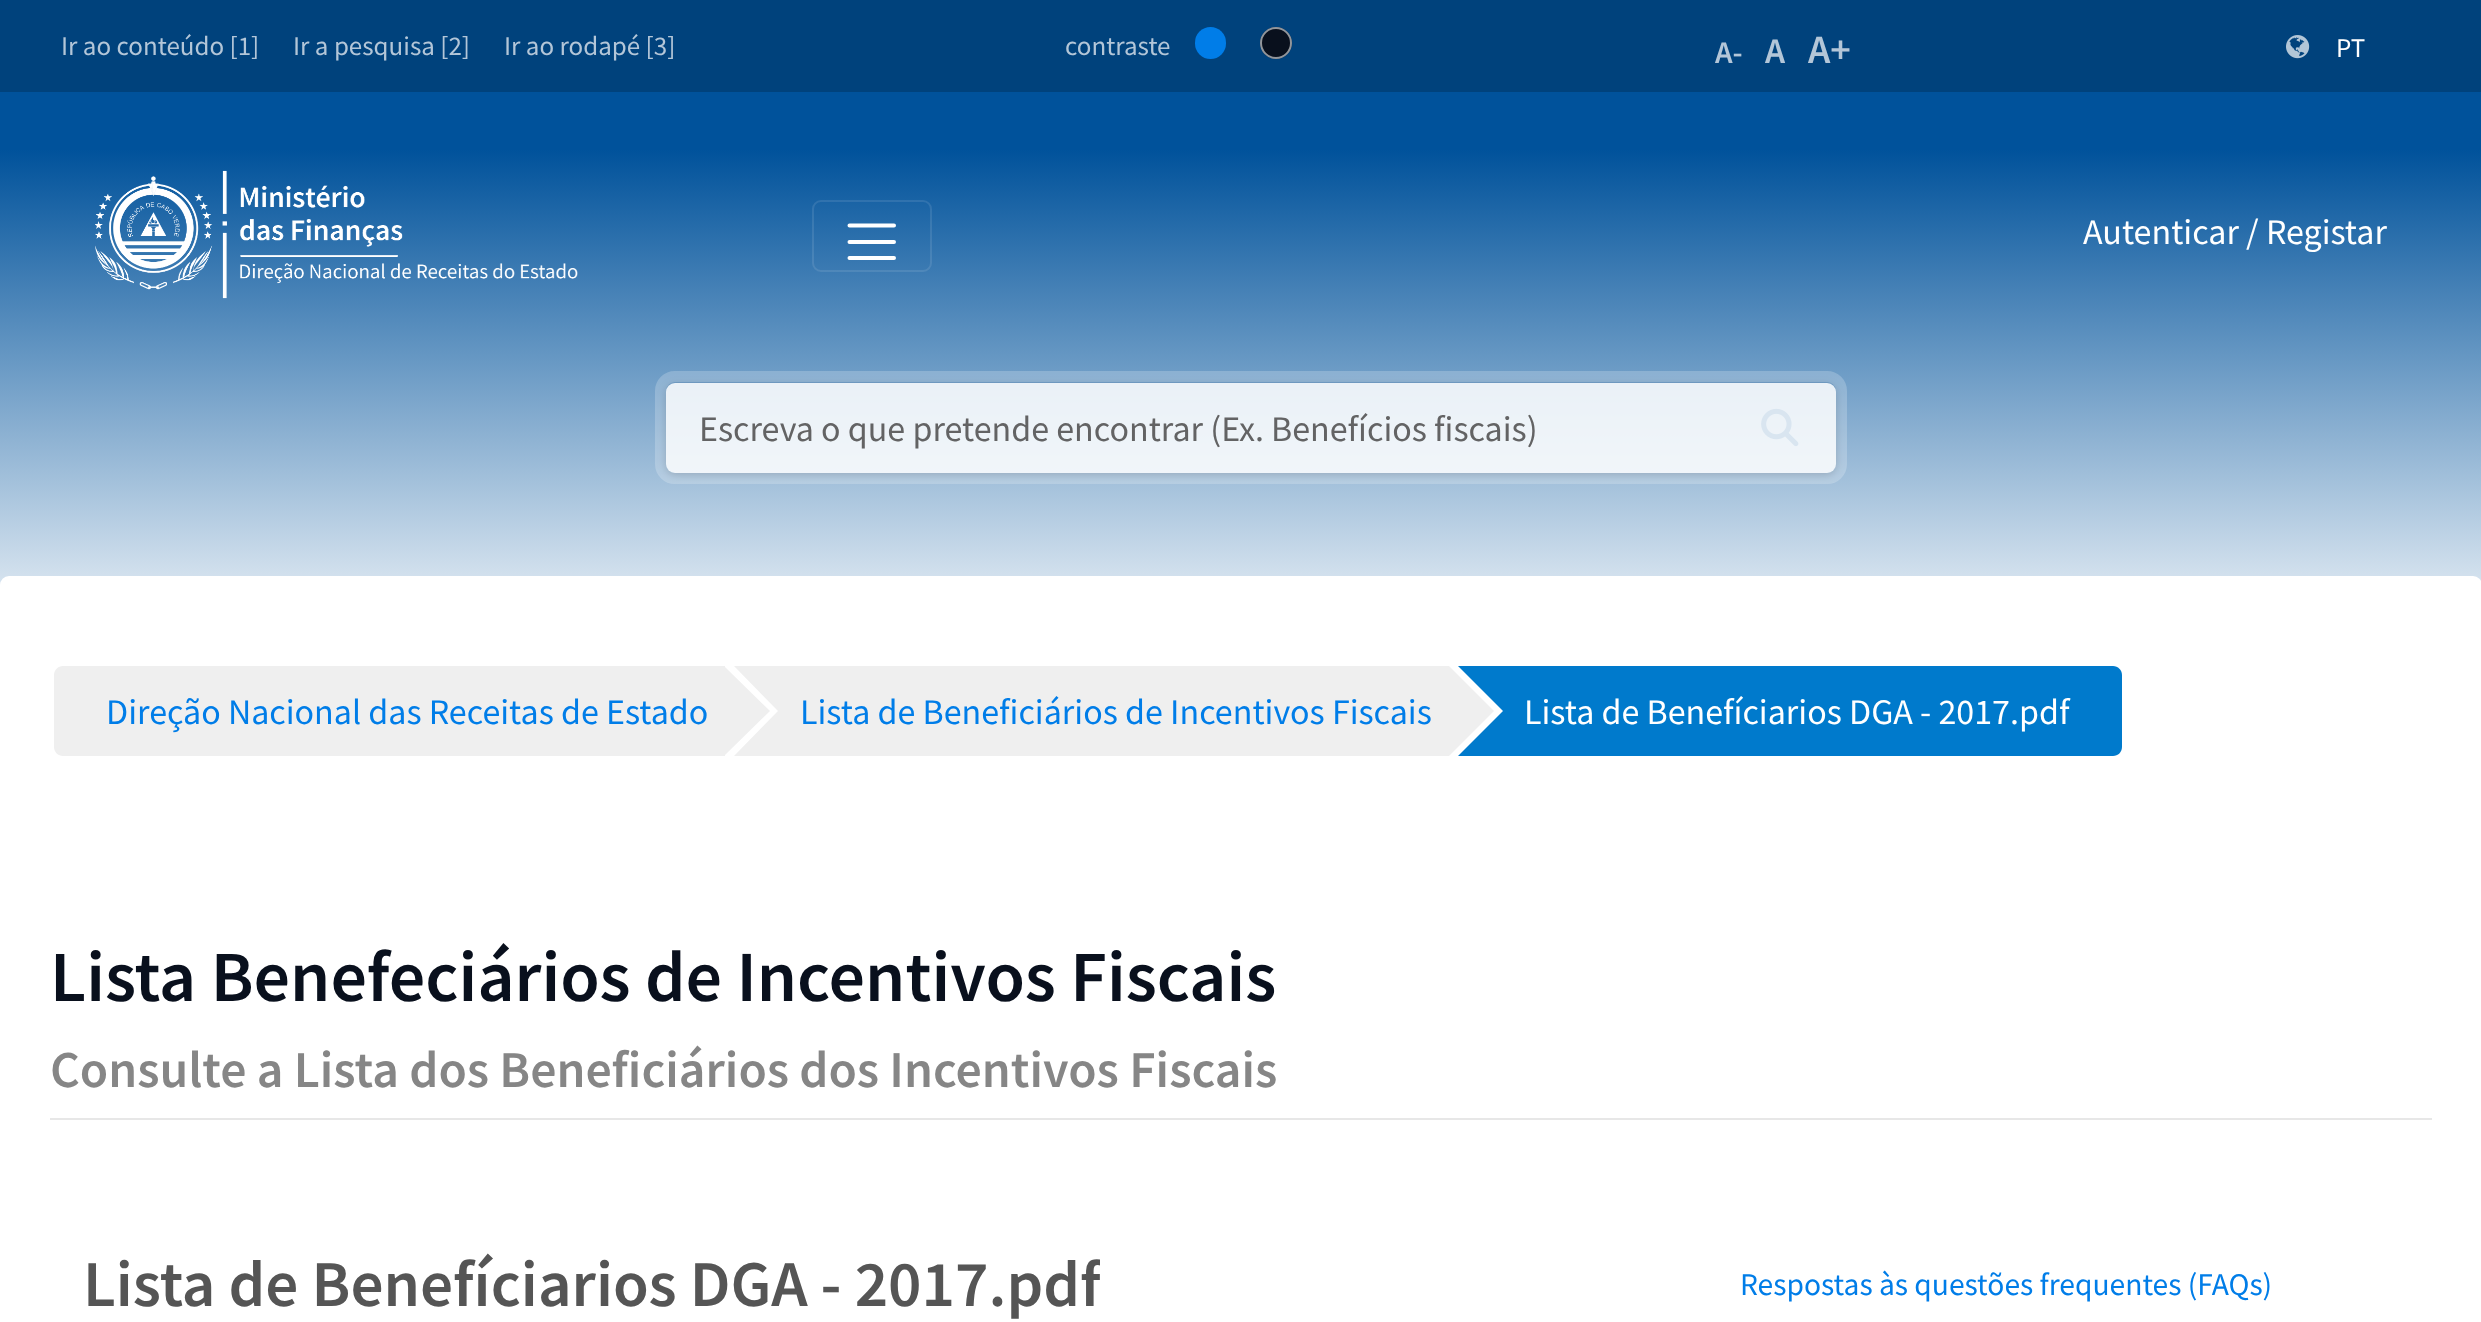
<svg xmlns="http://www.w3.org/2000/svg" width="2481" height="1322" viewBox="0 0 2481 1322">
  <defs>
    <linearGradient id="g1" gradientUnits="userSpaceOnUse" x1="1241" y1="92" x2="1241" y2="668"><stop offset="0.1" stop-color="#00529b"/><stop offset="1" stop-color="#ffffff"/></linearGradient>
    <clipPath id="clip1"><path d="M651 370H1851V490H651ZM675 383H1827C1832 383 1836 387 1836 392V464C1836 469 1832 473 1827 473H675C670 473 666 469 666 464V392C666 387 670 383 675 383Z" clip-rule="evenodd"/></clipPath>
    <filter id="blur1" x="-50%" y="-200%" width="200%" height="500%"><feGaussianBlur stdDeviation="4.5"/></filter>
    <clipPath id="clip2"><rect x="83" y="1247" width="1017" height="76"/></clipPath>
  </defs>
  <rect width="100%" height="100%" fill="#00427c"/>
  <text x="61" y="55" font-family="Source Sans Pro" font-size="27" fill="#b3c6d8">Ir ao conteúdo [1]</text>
  <text x="293" y="55" font-family="Source Sans Pro" font-size="27" fill="#b3c6d8">Ir a pesquisa [2]</text>
  <text x="504" y="55" font-family="Source Sans Pro" font-size="27" fill="#b3c6d8">Ir ao rodapé [3]</text>
  <text x="1065" y="55" font-family="Source Sans Pro" font-size="27" fill="#b3c6d8">contraste</text>
  <rect x="1195" y="27" width="31" height="32" rx="15.5" fill="#007de8"/>
  <circle cx="1276" cy="43" r="16" fill="#09101d"/>
  <circle cx="1276" cy="43" r="15" fill="none" stroke="#ffffff" stroke-opacity="0.56" stroke-width="2"/>
  <text x="1715" y="63" font-family="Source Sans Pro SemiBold" font-size="31.5" font-weight="600" fill="#b3c6d8">A-</text>
  <text x="1765" y="63" font-family="Source Sans Pro SemiBold" font-size="36" font-weight="600" fill="#b3c6d8">A</text>
  <text x="1808" y="63" font-family="Source Sans Pro SemiBold" font-size="40" font-weight="600" fill="#b3c6d8">A+</text>
  <image x="2286" y="35" width="24" height="24" href="img1.png"/>
  <text x="2336" y="57" font-family="Source Sans Pro" font-size="27" fill="#ffffff">PT</text>
  <rect x="0" y="92" width="2481" height="493" fill="url(#g1)"/>
  <image x="95" y="170" width="483" height="129" href="img2.png"/>
  <rect x="813" y="201" width="118" height="70" rx="8" fill="none" stroke="#ffffff" stroke-opacity="0.1" stroke-width="2"/>
  <path d="M849.5 225.5H894M849.5 242H894M849.5 258H894" fill="none" stroke="#ffffff" stroke-width="4" stroke-linecap="round"/>
  <text x="2083" y="244" font-family="Source Sans Pro" font-size="36" fill="#ffffff">Autenticar / Registar</text>
  <image x="1761" y="408" width="38" height="39" href="img3.png"/>
  <rect x="660.5" y="376.5" width="1181" height="102" rx="14.5" fill="none" stroke="#ffffff" stroke-opacity="0.21" stroke-width="11"/>
  <g clip-path="url(#clip1)">
    <rect x="666" y="385" width="1170" height="90" rx="9" fill="#000000" fill-opacity="0.16" filter="url(#blur1)"/>
  </g>
  <rect x="666" y="383" width="1170" height="90" rx="9" fill="#ffffff" fill-opacity="0.85"/>
  <text x="699" y="441" font-family="Source Sans Pro" font-size="36" fill="#636364">Escreva o que pretende encontrar (Ex. Benefícios fiscais)</text>
  <rect x="0" y="576" width="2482" height="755" rx="9" fill="#ffffff"/>
  <path d="M63 666H734V756H63C58 756 54 752 54 747V675C54 670 58 666 63 666Z" fill="#efefef"/>
  <rect x="725" y="666" width="9" height="90" fill="#ffffff"/>
  <text x="106" y="724" font-family="Source Sans Pro" font-size="36" fill="#007de8">Direção Nacional das Receitas de Estado</text>
  <rect x="734" y="666" width="715" height="90" fill="#efefef"/>
  <path d="M734 756V666L778 711Z" fill="#ffffff"/>
  <path d="M724 756V666L770 711Z" fill="#efefef"/>
  <text x="800" y="724" font-family="Source Sans Pro" font-size="36" fill="#007de8">Lista de Beneficiários de Incentivos Fiscais</text>
  <path d="M1458 666H2113C2118 666 2122 670 2122 675V747C2122 752 2118 756 2113 756H1458Z" fill="#007acc"/>
  <path d="M1458 756V666L1503 711Z" fill="#ffffff"/>
  <path d="M1449 756V666L1494 711Z" fill="#efefef"/>
  <text x="1524" y="724" font-family="Source Sans Pro" font-size="36" fill="#ffffff">Lista de Benefíciarios DGA - 2017.pdf</text>
  <text x="50" y="1001" font-family="Source Sans Pro SemiBold" font-size="72" font-weight="600" fill="#09101d">Lista Benefeciários de Incentivos Fiscais</text>
  <text x="50" y="1087" font-family="Source Sans Pro SemiBold" font-size="51.75" font-weight="600" fill="#868686">Consulte a Lista dos Beneficiários dos Incentivos Fiscais</text>
  <rect x="50" y="1118" width="2382" height="2" fill="#e7e7e7"/>
  <g clip-path="url(#clip2)">
    <text x="83" y="1306" font-family="Source Sans Pro SemiBold" font-size="65.25" font-weight="600" fill="#555555">Lista de Benefíciarios DGA - 2017.pdf</text>
  </g>
  <text x="1740" y="1295" font-family="Source Sans Pro" font-size="31.5" fill="#007de8">Respostas às questões frequentes (FAQs)</text>
</svg>
